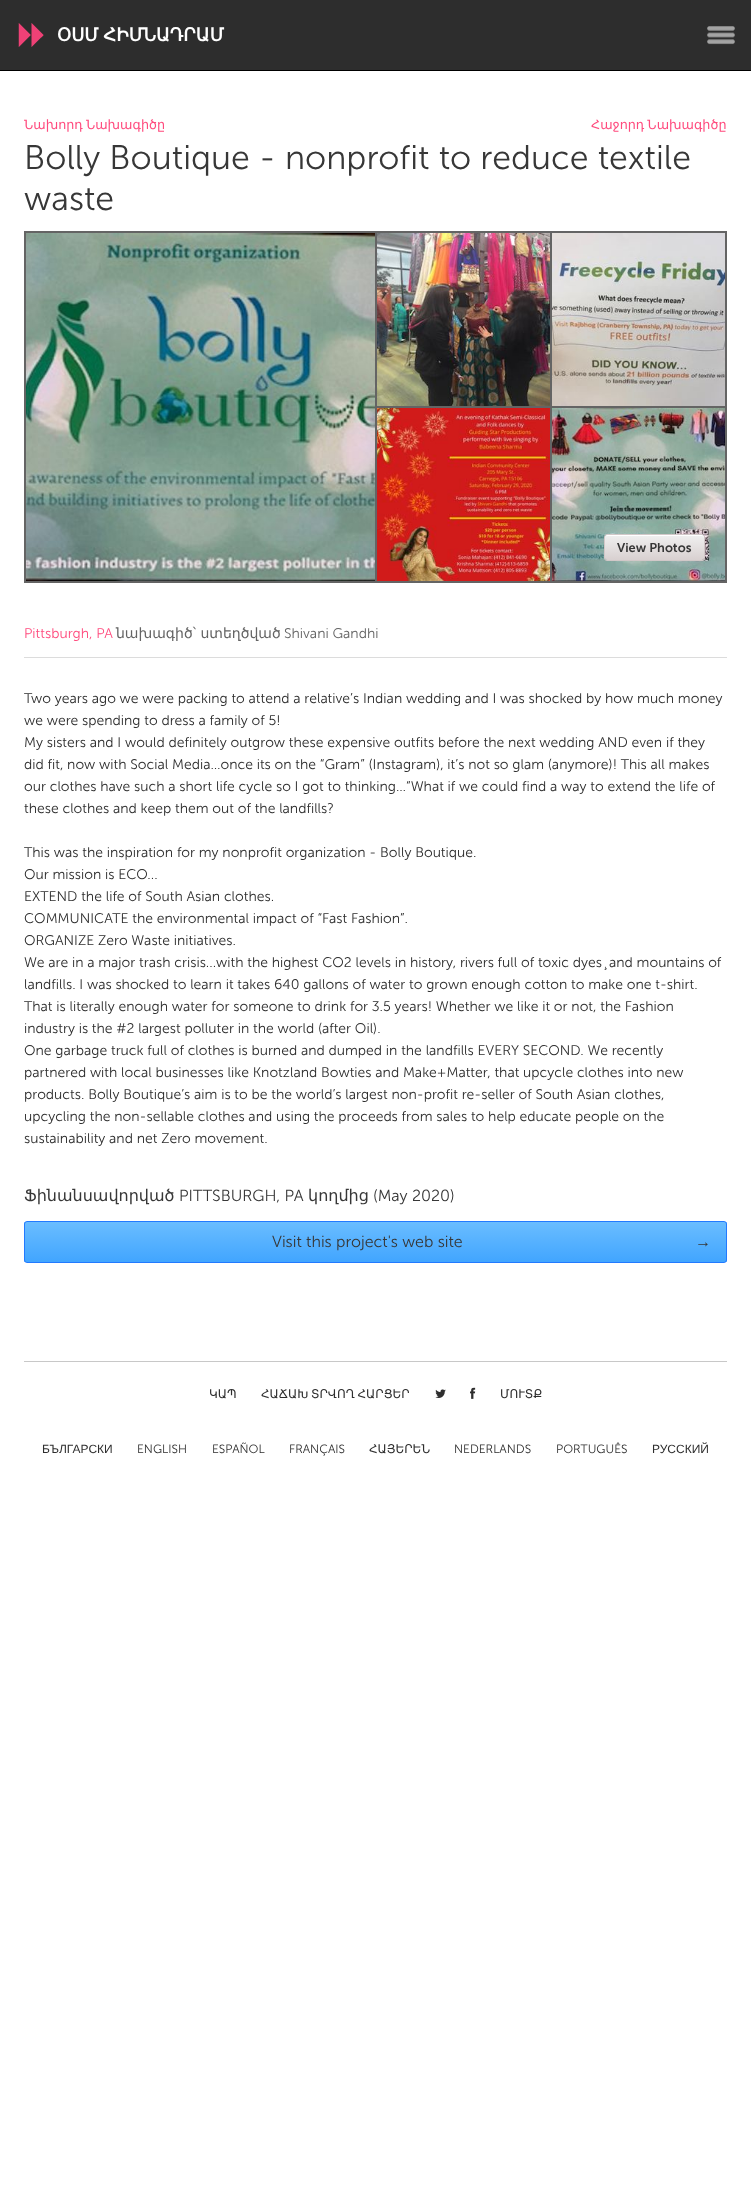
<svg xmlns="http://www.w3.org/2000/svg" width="751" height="2203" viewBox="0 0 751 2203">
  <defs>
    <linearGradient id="g1" gradientUnits="userSpaceOnUse" x1="655" y1="535" x2="655" y2="560"><stop offset="0" stop-color="#f0f0f0"/><stop offset="1" stop-color="#d8d0d0"/></linearGradient>
    <clipPath id="clip1"><rect x="24" y="1221" width="703" height="42" rx="3"/></clipPath>
    <linearGradient id="g2" gradientUnits="userSpaceOnUse" x1="376" y1="1222" x2="376" y2="1262"><stop offset="0" stop-color="#6abdff"/><stop offset="1" stop-color="#41a5ff"/></linearGradient>
  </defs>
  <rect width="100%" height="100%" fill="#ffffff"/>
  <rect x="0" y="0" width="751" height="70" fill="#2d2d2d"/>
  <rect x="0" y="70" width="751" height="1" fill="#000000"/>
  <image x="18" y="23" width="26" height="24" href="img1.png"/>
  <text x="57" y="41" word-spacing="-1" font-family="DejaVu Sans" font-size="18" font-weight="bold" fill="#ffffff">ՕՍՄ ՀԻՄՆԱԴՐԱՄ</text>
  <image x="707" y="26" width="28" height="19" href="img2.png"/>
  <text x="24" y="129" word-spacing="-1" font-family="DejaVu Sans" font-size="12.75" fill="#ff4b7e">Նախորդ Նախագիծը</text>
  <text x="591" y="129" word-spacing="-1" font-family="DejaVu Sans" font-size="12.75" fill="#ff4b7e">Հաջորդ Նախագիծը</text>
  <text x="24" y="169" font-family="'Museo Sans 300'" font-size="34" font-weight="300" fill="#373737">Bolly Boutique - nonprofit to reduce textile</text>
  <text x="24" y="210" font-family="'Museo Sans 300'" font-size="34" font-weight="300" fill="#373737">waste</text>
  <rect x="24" y="231" width="703" height="352" fill="#646464"/>
  <image x="26" y="233" width="349" height="348" href="img3.png"/>
  <image x="377" y="233" width="173" height="173" href="img4.png"/>
  <image x="552" y="233" width="173" height="173" href="img5.png"/>
  <image x="377" y="408" width="173" height="173" href="img6.png"/>
  <image x="552" y="408" width="173" height="173" href="img7.png"/>
  <rect x="605" y="535" width="99" height="25" rx="2" fill="url(#g1)"/>
  <path d="M607 536H702C703 536 704 537 704 538C704 537 704 535 702 535H623C621 535 605 531 605 538C605 537 606 536 607 536Z" fill="#ffffff"/>
  <rect x="604.5" y="534.5" width="100" height="26" rx="2.5" fill="none" stroke="#d1c8c8"/>
  <text x="617" y="552" font-family="'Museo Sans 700'" font-size="12.75" font-weight="600" fill="#373737">View Photos</text>
  <rect x="24" y="657" width="703" height="1" fill="#dcdcdc"/>
  <text x="24" y="638" font-family="'Museo Sans 300'" font-size="14" font-weight="300" fill="#ff4b7e">Pittsburgh, PA</text>
  <text x="116" y="638" font-family="DejaVu Sans" font-size="14" fill="#646464">նախագիծ՝ ստեղծված</text>
  <text x="284" y="638" font-family="'Museo Sans 300'" font-size="14" font-weight="300" fill="#646464">Shivani Gandhi</text>
  <text x="24" y="703" font-family="'Museo Sans 300'" font-size="14" font-weight="300" fill="#2e2e2e">Two years ago we were packing to attend a relative’s Indian wedding and I was shocked by how much money</text>
  <text x="24" y="725" font-family="'Museo Sans 300'" font-size="14" font-weight="300" fill="#2e2e2e">we were spending to dress a family of 5!</text>
  <text x="24" y="747" font-family="'Museo Sans 300'" font-size="14" font-weight="300" fill="#2e2e2e">My sisters and I would definitely outgrow these expensive outfits before the next wedding AND even if they</text>
  <text x="24" y="769" font-family="'Museo Sans 300'" font-size="14" font-weight="300" fill="#2e2e2e">did fit, now with Social Media…once its on the “Gram” (Instagram), it’s not so glam (anymore)! This all makes</text>
  <text x="24" y="791" font-family="'Museo Sans 300'" font-size="14" font-weight="300" fill="#2e2e2e">our clothes have such a short life cycle so I got to thinking…“What if we could find a way to extend the life of</text>
  <text x="24" y="813" font-family="'Museo Sans 300'" font-size="14" font-weight="300" fill="#2e2e2e">these clothes and keep them out of the landfills?</text>
  <text x="24" y="857" font-family="'Museo Sans 300'" font-size="14" font-weight="300" fill="#2e2e2e">This was the inspiration for my nonprofit organization - Bolly Boutique.</text>
  <text x="24" y="879" font-family="'Museo Sans 300'" font-size="14" font-weight="300" fill="#2e2e2e">Our mission is ECO...</text>
  <text x="24" y="901" font-family="'Museo Sans 300'" font-size="14" font-weight="300" fill="#2e2e2e">EXTEND the life of South Asian clothes.</text>
  <text x="24" y="923" font-family="'Museo Sans 300'" font-size="14" font-weight="300" fill="#2e2e2e">COMMUNICATE the environmental impact of “Fast Fashion”.</text>
  <text x="24" y="945" font-family="'Museo Sans 300'" font-size="14" font-weight="300" fill="#2e2e2e">ORGANIZE Zero Waste initiatives.</text>
  <text x="24" y="967" font-family="'Museo Sans 300'" font-size="14" font-weight="300" fill="#2e2e2e">We are in a major trash crisis...with the highest CO2 levels in history, rivers full of toxic dyes¸and mountains of</text>
  <text x="24" y="989" font-family="'Museo Sans 300'" font-size="14" font-weight="300" fill="#2e2e2e">landfills. I was shocked to learn it takes 640 gallons of water to grown enough cotton to make one t-shirt.</text>
  <text x="24" y="1011" font-family="'Museo Sans 300'" font-size="14" font-weight="300" fill="#2e2e2e">That is literally enough water for someone to drink for 3.5 years! Whether we like it or not, the Fashion</text>
  <text x="24" y="1033" font-family="'Museo Sans 300'" font-size="14" font-weight="300" fill="#2e2e2e">industry is the #2 largest polluter in the world (after Oil).</text>
  <text x="24" y="1055" font-family="'Museo Sans 300'" font-size="14" font-weight="300" fill="#2e2e2e">One garbage truck full of clothes is burned and dumped in the landfills EVERY SECOND. We recently</text>
  <text x="24" y="1077" font-family="'Museo Sans 300'" font-size="14" font-weight="300" fill="#2e2e2e">partnered with local businesses like Knotzland Bowties and Make+Matter, that upcycle clothes into new</text>
  <text x="24" y="1099" font-family="'Museo Sans 300'" font-size="14" font-weight="300" fill="#2e2e2e">products. Bolly Boutique’s aim is to be the world’s largest non-profit re-seller of South Asian clothes,</text>
  <text x="24" y="1121" font-family="'Museo Sans 300'" font-size="14" font-weight="300" fill="#2e2e2e">upcycling the non-sellable clothes and using the proceeds from sales to help educate people on the</text>
  <text x="24" y="1143" font-family="'Museo Sans 300'" font-size="14" font-weight="300" fill="#2e2e2e">sustainability and net Zero movement.</text>
  <text x="24" y="1201" font-family="DejaVu Sans" font-size="16" fill="#373737">Ֆինանսավորված</text>
  <text x="179" y="1201" font-family="'Museo Sans 300'" font-size="16" font-weight="300" fill="#373737">PITTSBURGH, PA</text>
  <text x="308" y="1201" font-family="DejaVu Sans" font-size="16" fill="#373737">կողմից</text>
  <text x="373" y="1201" font-family="'Museo Sans 300'" font-size="16" font-weight="300" fill="#373737">(May 2020)</text>
  <g clip-path="url(#clip1)">
    <rect x="24" y="1222" width="703" height="40" fill="url(#g2)"/>
  </g>
  <rect x="24.5" y="1221.5" width="702" height="41" rx="2.5" fill="none" stroke="#227aff"/>
  <text x="272" y="1247" font-family="'Museo Sans 300'" font-size="16" font-weight="300" fill="#373737">Visit this project's web site</text>
  <text x="695" y="1247" font-family="Liberation Sans" font-size="16" fill="#373737">→</text>
  <rect x="24" y="1361" width="703" height="1" fill="#c8c8c8"/>
  <text x="209" y="1398" font-family="DejaVu Sans" font-size="12" fill="#2e2e2e">ԿԱՊ</text>
  <text x="261" y="1398" word-spacing="-1" font-family="DejaVu Sans" font-size="12" fill="#2e2e2e">ՀԱՃԱԽ ՏՐՎՈՂ ՀԱՐՑԵՐ</text>
  <image x="435" y="1389" width="11" height="9" href="img8.png"/>
  <image x="470" y="1387" width="6" height="12" href="img9.png"/>
  <text x="500" y="1398" font-family="DejaVu Sans" font-size="12" fill="#2e2e2e">ՄՈՒՏՔ</text>
  <text x="42" y="1453" font-family="Liberation Sans" font-size="12" fill="#2e2e2e">БЪЛГАРСКИ</text>
  <text x="137" y="1453" font-family="'Museo Sans 300'" font-size="12" font-weight="300" fill="#2e2e2e">ENGLISH</text>
  <text x="212" y="1453" font-family="'Museo Sans 300'" font-size="12" font-weight="300" fill="#2e2e2e">ESPAÑOL</text>
  <text x="289" y="1453" font-family="'Museo Sans 300'" font-size="12" font-weight="300" fill="#2e2e2e">FRANÇAIS</text>
  <text x="369" y="1453" font-family="DejaVu Sans" font-size="12" fill="#2e2e2e">ՀԱՅԵՐԵՆ</text>
  <text x="454" y="1453" font-family="'Museo Sans 300'" font-size="12" font-weight="300" fill="#2e2e2e">NEDERLANDS</text>
  <text x="556" y="1453" font-family="'Museo Sans 300'" font-size="12" font-weight="300" fill="#2e2e2e">PORTUGUÊS</text>
  <text x="652" y="1453" font-family="Liberation Sans" font-size="12" fill="#2e2e2e">РУССКИЙ</text>
</svg>
